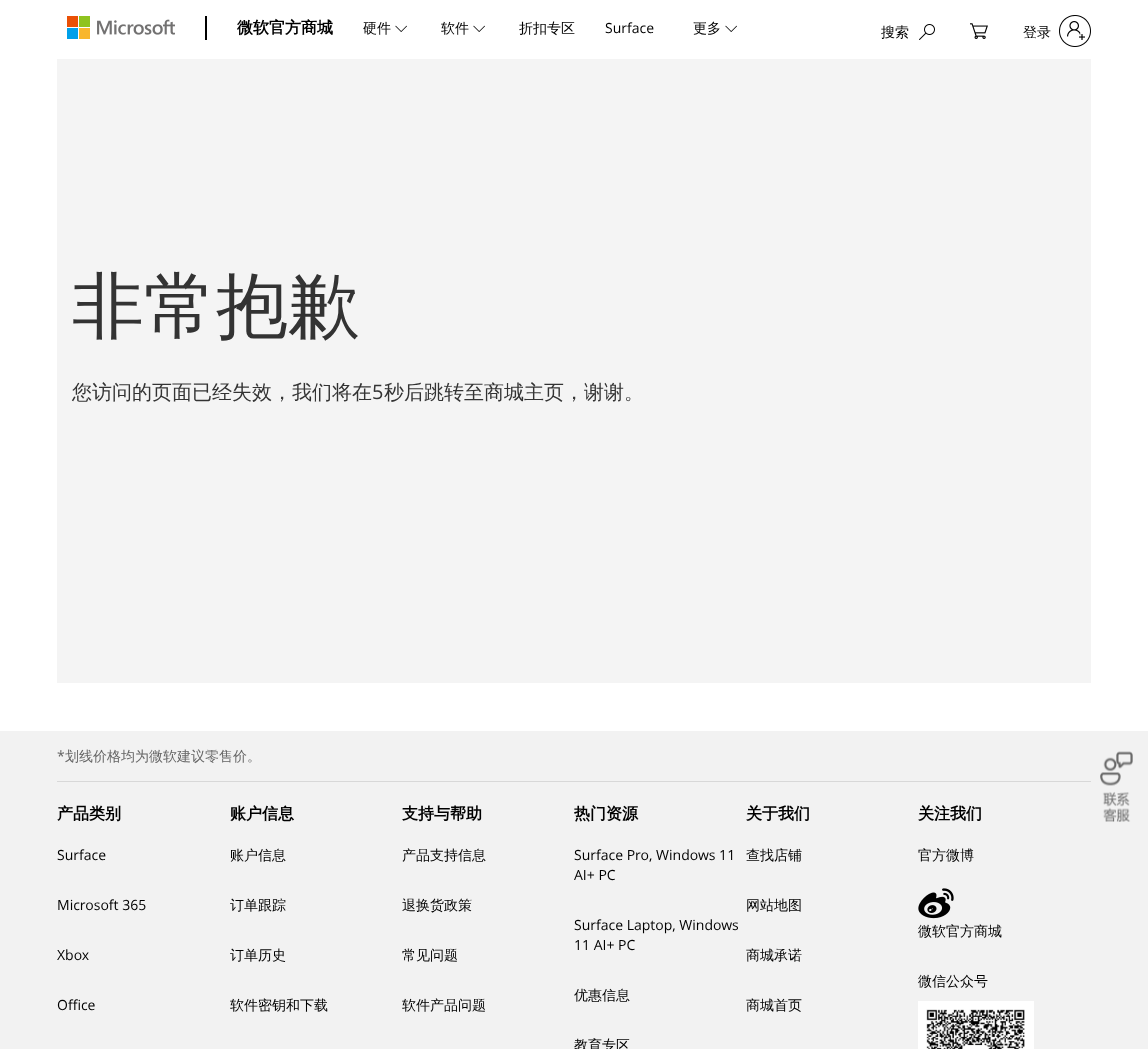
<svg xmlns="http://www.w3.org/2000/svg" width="1148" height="1049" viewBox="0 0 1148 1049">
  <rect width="100%" height="100%" fill="#ffffff"/>
  <image x="67" y="16" width="108" height="23" href="img1.png"/>
  <rect x="205" y="16" width="2" height="24" fill="#000000"/>
  <text x="237" y="33" font-family="WenQuanYi Zen Hei" font-size="16" font-weight="bold" fill="#000000">微软官方商城</text>
  <text x="363" y="33" font-family="WenQuanYi Zen Hei" font-size="14" font-weight="500" fill="#000000">硬件</text>
  <image x="395" y="25" width="12" height="7" href="img2.png"/>
  <text x="441" y="33" font-family="WenQuanYi Zen Hei" font-size="14" font-weight="500" fill="#000000">软件</text>
  <image x="473" y="25" width="12" height="7" href="img2.png"/>
  <text x="519" y="33" font-family="WenQuanYi Zen Hei" font-size="14" font-weight="500" fill="#000000">折扣专区</text>
  <text x="605" y="33" font-family="Open Sans" font-size="14" fill="#000000">Surface</text>
  <text x="693" y="33" font-family="WenQuanYi Zen Hei" font-size="14" font-weight="500" fill="#000000">更多</text>
  <image x="725" y="25" width="12" height="7" href="img3.png"/>
  <text x="881" y="37" font-family="WenQuanYi Zen Hei" font-size="14" font-weight="500" fill="#000000">搜索</text>
  <image x="919" y="24" width="16" height="16" href="img4.png"/>
  <image x="970" y="23" width="18" height="16" href="img5.png"/>
  <text x="1023" y="37" font-family="WenQuanYi Zen Hei" font-size="14" font-weight="500" fill="#000000">登录</text>
  <image x="1059" y="15" width="32" height="32" href="img6.png"/>
  <rect x="57" y="59" width="1034" height="624" fill="#f4f4f4"/>
  <text x="72" y="331" font-family="WenQuanYi Zen Hei" font-size="72" font-weight="500" fill="#333333">非常抱歉</text>
  <text x="72" y="399" font-family="WenQuanYi Zen Hei" font-size="20" font-weight="500" fill="#333333">您访问的页面已经失效，我们将在</text>
  <text x="372" y="399" font-family="Open Sans" font-size="20" fill="#333333">5</text>
  <text x="384" y="399" font-family="WenQuanYi Zen Hei" font-size="20" font-weight="500" fill="#333333">秒后跳转至商城主页，谢谢。</text>
  <rect x="0" y="731" width="1148" height="318" fill="#f2f2f2"/>
  <text x="57" y="761" font-family="Open Sans" font-size="14" fill="#666666">*</text>
  <text x="65" y="761" font-family="WenQuanYi Zen Hei" font-size="14" font-weight="500" fill="#666666">划线价格均为微软建议零售价。</text>
  <image x="1100" y="751" width="33" height="71" href="img7.png"/>
  <rect x="57" y="781" width="1034" height="1" fill="#d8d8d8"/>
  <text x="57" y="819" font-family="WenQuanYi Zen Hei" font-size="16" font-weight="bold" fill="#000000">产品类别</text>
  <text x="57" y="860" font-family="Open Sans" font-size="14" fill="#000000">Surface</text>
  <text x="57" y="910" font-family="Open Sans" font-size="14" fill="#000000">Microsoft 365</text>
  <text x="57" y="960" font-family="Open Sans" font-size="14" fill="#000000">Xbox</text>
  <text x="57" y="1010" font-family="Open Sans" font-size="14" fill="#000000">Office</text>
  <text x="230" y="819" font-family="WenQuanYi Zen Hei" font-size="16" font-weight="bold" fill="#000000">账户信息</text>
  <text x="230" y="860" font-family="WenQuanYi Zen Hei" font-size="14" font-weight="500" fill="#000000">账户信息</text>
  <text x="230" y="910" font-family="WenQuanYi Zen Hei" font-size="14" font-weight="500" fill="#000000">订单跟踪</text>
  <text x="230" y="960" font-family="WenQuanYi Zen Hei" font-size="14" font-weight="500" fill="#000000">订单历史</text>
  <text x="230" y="1010" font-family="WenQuanYi Zen Hei" font-size="14" font-weight="500" fill="#000000">软件密钥和下载</text>
  <text x="402" y="819" font-family="WenQuanYi Zen Hei" font-size="16" font-weight="bold" fill="#000000">支持与帮助</text>
  <text x="402" y="860" font-family="WenQuanYi Zen Hei" font-size="14" font-weight="500" fill="#000000">产品支持信息</text>
  <text x="402" y="910" font-family="WenQuanYi Zen Hei" font-size="14" font-weight="500" fill="#000000">退换货政策</text>
  <text x="402" y="960" font-family="WenQuanYi Zen Hei" font-size="14" font-weight="500" fill="#000000">常见问题</text>
  <text x="402" y="1010" font-family="WenQuanYi Zen Hei" font-size="14" font-weight="500" fill="#000000">软件产品问题</text>
  <text x="574" y="819" font-family="WenQuanYi Zen Hei" font-size="16" font-weight="bold" fill="#000000">热门资源</text>
  <text x="574" y="860" font-family="Open Sans" font-size="14" fill="#000000">Surface Pro, Windows 11</text>
  <text x="574" y="880" font-family="Open Sans" font-size="14" fill="#000000">AI+ PC</text>
  <text x="574" y="930" font-family="Open Sans" font-size="14" fill="#000000">Surface Laptop, Windows</text>
  <text x="574" y="950" font-family="Open Sans" font-size="14" fill="#000000">11 AI+ PC</text>
  <text x="574" y="1000" font-family="WenQuanYi Zen Hei" font-size="14" font-weight="500" fill="#000000">优惠信息</text>
  <text x="574" y="1050" font-family="WenQuanYi Zen Hei" font-size="14" font-weight="500" fill="#000000">教育专区</text>
  <text x="746" y="819" font-family="WenQuanYi Zen Hei" font-size="16" font-weight="bold" fill="#000000">关于我们</text>
  <text x="746" y="860" font-family="WenQuanYi Zen Hei" font-size="14" font-weight="500" fill="#000000">查找店铺</text>
  <text x="746" y="910" font-family="WenQuanYi Zen Hei" font-size="14" font-weight="500" fill="#000000">网站地图</text>
  <text x="746" y="960" font-family="WenQuanYi Zen Hei" font-size="14" font-weight="500" fill="#000000">商城承诺</text>
  <text x="746" y="1010" font-family="WenQuanYi Zen Hei" font-size="14" font-weight="500" fill="#000000">商城首页</text>
  <text x="918" y="819" font-family="WenQuanYi Zen Hei" font-size="16" font-weight="bold" fill="#000000">关注我们</text>
  <text x="918" y="860" font-family="WenQuanYi Zen Hei" font-size="14" font-weight="500" fill="#000000">官方微博</text>
  <image x="918" y="888" width="36" height="31" href="img8.png"/>
  <text x="918" y="936" font-family="WenQuanYi Zen Hei" font-size="14" font-weight="500" fill="#000000">微软官方商城</text>
  <text x="918" y="986" font-family="WenQuanYi Zen Hei" font-size="14" font-weight="500" fill="#000000">微信公众号</text>
  <rect x="918" y="1001" width="116" height="48" fill="#ffffff"/>
  <image x="926" y="1009" width="99" height="40" href="img9.png"/>
</svg>
